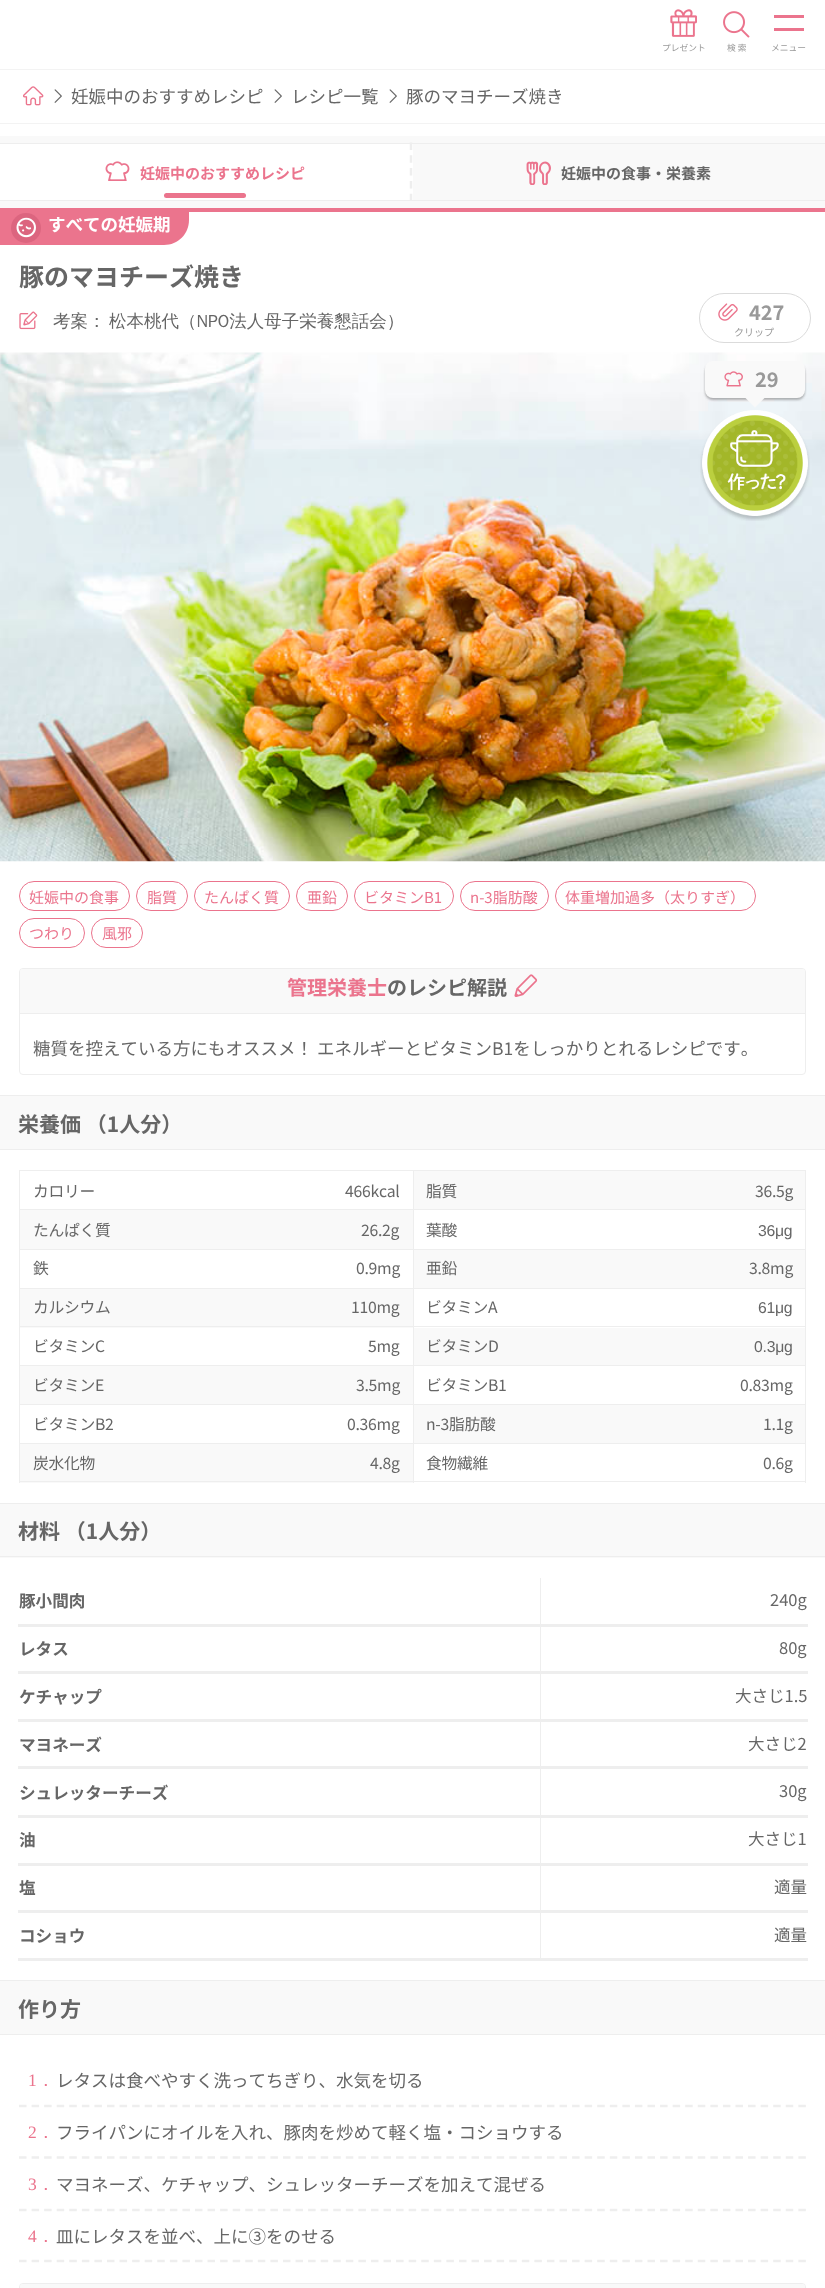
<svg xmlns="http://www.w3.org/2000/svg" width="825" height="2288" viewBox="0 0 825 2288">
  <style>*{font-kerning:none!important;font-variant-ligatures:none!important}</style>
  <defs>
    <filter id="blur1" x="-50%" y="-200%" width="200%" height="500%"><feGaussianBlur stdDeviation="1"/></filter>
  </defs>
  <rect width="100%" height="100%" fill="#ffffff"/>
  <image x="670" y="9" width="27" height="28" href="img1.png"/>
  <text x="662" y="51" font-family="Noto Sans JP" font-size="8.75" fill="#999999">プレゼント</text>
  <image x="723" y="11" width="27" height="27" href="img2.png"/>
  <text x="727" y="51" font-family="Noto Sans JP" font-size="8.75" fill="#999999">検 索</text>
  <rect x="774" y="15" width="30" height="3" fill="#eb748d"/>
  <rect x="774" y="28" width="30" height="3" fill="#eb748d"/>
  <text x="771" y="51" font-family="Noto Sans JP" font-size="8.75" fill="#999999">メニュー</text>
  <rect x="0" y="69" width="825" height="1" fill="#f3f3f3"/>
  <rect x="0" y="123" width="825" height="1" fill="#f3f3f3"/>
  <image x="23" y="86" width="21" height="20" href="img3.png"/>
  <image x="54" y="89" width="8" height="14" href="img4.png"/>
  <text x="71" y="103" font-family="Noto Sans JP" font-size="17.5" fill="#666666">妊娠中のおすすめレシピ</text>
  <image x="274" y="89" width="8" height="14" href="img4.png"/>
  <text x="291" y="103" font-family="Noto Sans JP" font-size="17.5" fill="#666666">レシピ一覧</text>
  <image x="389" y="89" width="8" height="14" href="img4.png"/>
  <text x="406" y="103" font-family="Noto Sans JP" font-size="17.5" fill="#666666">豚のマヨチーズ焼き</text>
  <rect x="0" y="136" width="825" height="72" fill="#f9f9f9"/>
  <rect x="0" y="144" width="413" height="56" fill="#ffffff"/>
  <rect x="0" y="143" width="825" height="1" fill="#eeeeee"/>
  <path d="M411 142.5V201" fill="none" stroke="#eeeeee" stroke-width="2.5" stroke-dasharray="7.5 5.31"/>
  <rect x="0" y="200" width="825" height="1" fill="#eeeeee"/>
  <image x="105" y="161" width="25" height="20" href="img5.png"/>
  <text x="140" y="179" font-family="Noto Sans JP" font-size="15" font-weight="bold" fill="#eb748d">妊娠中のおすすめレシピ</text>
  <rect x="164" y="193" width="82" height="5" rx="2.5" fill="#eb748d"/>
  <image x="526" y="161" width="25" height="24" href="img6.png"/>
  <text x="561" y="179" font-family="Noto Sans JP" font-size="15" font-weight="bold" fill="#666666">妊娠中の食事・栄養素</text>
  <rect x="0" y="208" width="825" height="4" fill="#eb748d"/>
  <path d="M0 209H189V220C189 234 178 245 164 245H0Z" fill="#eb748d"/>
  <circle cx="26" cy="228" r="15" fill="#dc657f"/>
  <image x="16" y="217" width="20" height="21" href="img7.png"/>
  <text x="48" y="231" font-family="Noto Sans JP" font-size="17.5" font-weight="bold" fill="#ffffff">すべての妊娠期</text>
  <text x="19" y="286" font-family="Noto Sans JP" font-size="25" font-weight="bold" fill="#666666">豚のマヨチーズ焼き</text>
  <image x="19" y="311" width="19" height="19" href="img8.png"/>
  <text x="53" y="327" font-family="WenQuanYi Zen Hei" font-size="17.5" font-weight="500" fill="#666666">考案：</text>
  <text x="109" y="327" font-family="WenQuanYi Zen Hei" font-size="17.5" font-weight="500" fill="#666666">松本桃代（NPO法人母子栄養懇話会）</text>
  <rect x="699.5" y="293.5" width="111" height="49" rx="24.5" fill="none" stroke="#dbdbdb"/>
  <image x="718" y="303" width="20" height="18" href="img9.png"/>
  <text x="749" y="320" font-family="Noto Sans JP" font-size="20" font-weight="bold" fill="#999999">427</text>
  <text x="734" y="336" font-family="Noto Sans JP" font-size="10" fill="#999999">クリップ</text>
  <image x="0" y="352" width="825" height="510" href="img12.png"/>
  <rect x="705" y="364" width="100" height="36" rx="8" fill="#666666" fill-opacity="0.5" filter="url(#blur1)"/>
  <rect x="705" y="361" width="100" height="37" rx="8" fill="#f9f9f9"/>
  <image x="724" y="371" width="19" height="16" href="img10.png"/>
  <text x="755" y="387" font-family="Noto Sans JP" font-size="20" font-weight="bold" fill="#999999">29</text>
  <path d="M745 397.5H765L755 407.5Z" fill="#f9f9f9"/>
  <image x="700" y="410" width="110" height="111" href="img11.png"/>
  <rect x="19.5" y="881.5" width="110" height="29" rx="14.5" fill="none" stroke="#eb748d"/>
  <text x="29" y="903" font-family="Noto Sans JP" font-size="15" fill="#eb748d">妊娠中の食事</text>
  <rect x="136.5" y="881.5" width="51" height="29" rx="14.5" fill="none" stroke="#eb748d"/>
  <text x="147" y="903" font-family="Noto Sans JP" font-size="15" fill="#eb748d">脂質</text>
  <rect x="194.5" y="881.5" width="95" height="29" rx="14.5" fill="none" stroke="#eb748d"/>
  <text x="204" y="903" font-family="Noto Sans JP" font-size="15" fill="#eb748d">たんぱく質</text>
  <rect x="296.5" y="881.5" width="51" height="29" rx="14.5" fill="none" stroke="#eb748d"/>
  <text x="307" y="903" font-family="Noto Sans JP" font-size="15" fill="#eb748d">亜鉛</text>
  <rect x="354.5" y="881.5" width="99" height="29" rx="14.5" fill="none" stroke="#eb748d"/>
  <text x="364" y="903" font-family="Noto Sans JP" font-size="15" fill="#eb748d">ビタミンB1</text>
  <rect x="460.5" y="881.5" width="88" height="29" rx="14.5" fill="none" stroke="#eb748d"/>
  <text x="470" y="903" font-family="Noto Sans JP" font-size="15" fill="#eb748d">n-3脂肪酸</text>
  <rect x="555.5" y="881.5" width="200" height="29" rx="14.5" fill="none" stroke="#eb748d"/>
  <text x="565" y="903" font-family="Noto Sans JP" font-size="15" fill="#eb748d">体重増加過多（太りすぎ）</text>
  <rect x="19.5" y="918.5" width="65" height="29" rx="14.5" fill="none" stroke="#eb748d"/>
  <text x="29" y="939" font-family="Noto Sans JP" font-size="15" fill="#eb748d">つわり</text>
  <rect x="91.5" y="918.5" width="51" height="29" rx="14.5" fill="none" stroke="#eb748d"/>
  <text x="102" y="939" font-family="Noto Sans JP" font-size="15" fill="#eb748d">風邪</text>
  <rect x="19.5" y="968.5" width="786" height="106" rx="3.5" fill="none" stroke="#eeeeee"/>
  <path d="M22.5 969H802.5C804 969 805 970 805 971.5V1014H20V971.5C20 970 21 969 22.5 969Z" fill="#f9f9f9"/>
  <rect x="20" y="1013" width="785" height="1" fill="#eeeeee"/>
  <text x="287" y="995" font-family="Noto Sans JP" font-size="20" font-weight="bold" fill="#eb748d">管理栄養士</text>
  <text x="387" y="995" font-family="Noto Sans JP" font-size="20" font-weight="bold" fill="#666666">のレシピ解説</text>
  <image x="514" y="974" width="24" height="23" href="img13.png"/>
  <text x="33" y="1055" font-family="Noto Sans JP" font-size="17.5" fill="#666666">糖質を控えている方にもオススメ！ エネルギーとビタミンB1をしっかりとれるレシピです。</text>
  <rect x="0" y="1096" width="825" height="53" fill="#f9f9f9"/>
  <rect x="0" y="1095" width="825" height="1" fill="#eeeeee"/>
  <rect x="0" y="1149" width="825" height="1" fill="#eeeeee"/>
  <text x="18" y="1132" font-family="Noto Sans JP" font-size="21" font-weight="bold" fill="#666666">栄養価 （1人分）</text>
  <rect x="19" y="1170" width="787" height="1" fill="#eeeeee"/>
  <rect x="19" y="1170" width="1" height="313" fill="#eeeeee"/>
  <rect x="413" y="1171" width="1" height="312" fill="#eeeeee"/>
  <rect x="20" y="1209" width="394" height="1" fill="#eeeeee"/>
  <text x="33" y="1197" font-family="Noto Sans JP" font-size="15.75" letter-spacing="-0.25" fill="#666666">カロリー</text>
  <text x="345" y="1197" font-family="Noto Sans JP" font-size="15.75" letter-spacing="-0.25" fill="#666666">466kcal</text>
  <rect x="414" y="1171" width="391" height="38" fill="#f9f9f9"/>
  <rect x="805" y="1171" width="1" height="312" fill="#eeeeee"/>
  <rect x="414" y="1209" width="392" height="1" fill="#eeeeee"/>
  <text x="426" y="1197" font-family="Noto Sans JP" font-size="15.75" letter-spacing="-0.25" fill="#666666">脂質</text>
  <text x="755" y="1197" font-family="Noto Sans JP" font-size="15.75" letter-spacing="-0.25" fill="#666666">36.5g</text>
  <rect x="20" y="1210" width="393" height="39" fill="#f9f9f9"/>
  <rect x="20" y="1249" width="786" height="1" fill="#eeeeee"/>
  <text x="33" y="1236" font-family="Noto Sans JP" font-size="15.75" letter-spacing="-0.25" fill="#666666">たんぱく質</text>
  <text x="361" y="1236" font-family="Noto Sans JP" font-size="15.75" letter-spacing="-0.25" fill="#666666">26.2g</text>
  <text x="426" y="1236" font-family="Noto Sans JP" font-size="15.75" letter-spacing="-0.25" fill="#666666">葉酸</text>
  <text x="758" y="1236" font-family="Liberation Sans" font-size="15.75" letter-spacing="-0.25" fill="#666666">36μg</text>
  <rect x="20" y="1288" width="786" height="1" fill="#eeeeee"/>
  <text x="33" y="1274" font-family="Noto Sans JP" font-size="15.75" letter-spacing="-0.25" fill="#666666">鉄</text>
  <text x="356" y="1274" font-family="Noto Sans JP" font-size="15.75" letter-spacing="-0.25" fill="#666666">0.9mg</text>
  <rect x="414" y="1250" width="391" height="38" fill="#f9f9f9"/>
  <text x="426" y="1274" font-family="Noto Sans JP" font-size="15.75" letter-spacing="-0.25" fill="#666666">亜鉛</text>
  <text x="749" y="1274" font-family="Noto Sans JP" font-size="15.75" letter-spacing="-0.25" fill="#666666">3.8mg</text>
  <rect x="20" y="1289" width="393" height="39" fill="#f9f9f9"/>
  <rect x="20" y="1326" width="786" height="1" fill="#eeeeee"/>
  <text x="33" y="1313" font-family="Noto Sans JP" font-size="15.75" letter-spacing="-0.25" fill="#666666">カルシウム</text>
  <text x="351" y="1313" font-family="Noto Sans JP" font-size="15.75" letter-spacing="-0.25" fill="#666666">110mg</text>
  <text x="426" y="1313" font-family="Noto Sans JP" font-size="15.75" letter-spacing="-0.25" fill="#666666">ビタミンA</text>
  <text x="758" y="1313" font-family="Liberation Sans" font-size="15.75" letter-spacing="-0.25" fill="#666666">61μg</text>
  <rect x="20" y="1365" width="786" height="1" fill="#eeeeee"/>
  <text x="33" y="1352" font-family="Noto Sans JP" font-size="15.75" letter-spacing="-0.25" fill="#666666">ビタミンC</text>
  <text x="368" y="1352" font-family="Noto Sans JP" font-size="15.75" letter-spacing="-0.25" fill="#666666">5mg</text>
  <rect x="414" y="1328" width="391" height="37" fill="#f9f9f9"/>
  <text x="426" y="1352" font-family="Noto Sans JP" font-size="15.75" letter-spacing="-0.25" fill="#666666">ビタミンD</text>
  <text x="754" y="1352" font-family="Liberation Sans" font-size="15.75" letter-spacing="-0.25" fill="#666666">0.3μg</text>
  <rect x="20" y="1366" width="393" height="38" fill="#f9f9f9"/>
  <rect x="20" y="1404" width="786" height="1" fill="#eeeeee"/>
  <text x="33" y="1391" font-family="Noto Sans JP" font-size="15.75" letter-spacing="-0.25" fill="#666666">ビタミンE</text>
  <text x="356" y="1391" font-family="Noto Sans JP" font-size="15.75" letter-spacing="-0.25" fill="#666666">3.5mg</text>
  <text x="426" y="1391" font-family="Noto Sans JP" font-size="15.75" letter-spacing="-0.25" fill="#666666">ビタミンB1</text>
  <text x="740" y="1391" font-family="Noto Sans JP" font-size="15.75" letter-spacing="-0.25" fill="#666666">0.83mg</text>
  <rect x="20" y="1443" width="786" height="1" fill="#eeeeee"/>
  <text x="33" y="1430" font-family="Noto Sans JP" font-size="15.75" letter-spacing="-0.25" fill="#666666">ビタミンB2</text>
  <text x="347" y="1430" font-family="Noto Sans JP" font-size="15.75" letter-spacing="-0.25" fill="#666666">0.36mg</text>
  <rect x="414" y="1405" width="391" height="38" fill="#f9f9f9"/>
  <text x="426" y="1430" font-family="Noto Sans JP" font-size="15.75" letter-spacing="-0.25" fill="#666666">n-3脂肪酸</text>
  <text x="763" y="1430" font-family="Noto Sans JP" font-size="15.75" letter-spacing="-0.25" fill="#666666">1.1g</text>
  <rect x="20" y="1444" width="393" height="39" fill="#f9f9f9"/>
  <rect x="20" y="1481" width="786" height="1" fill="#eeeeee"/>
  <text x="33" y="1469" font-family="Noto Sans JP" font-size="15.75" letter-spacing="-0.25" fill="#666666">炭水化物</text>
  <text x="370" y="1469" font-family="Noto Sans JP" font-size="15.75" letter-spacing="-0.25" fill="#666666">4.8g</text>
  <text x="426" y="1469" font-family="Noto Sans JP" font-size="15.75" letter-spacing="-0.25" fill="#666666">食物繊維</text>
  <text x="763" y="1469" font-family="Noto Sans JP" font-size="15.75" letter-spacing="-0.25" fill="#666666">0.6g</text>
  <rect x="0" y="1504" width="825" height="54" fill="#f9f9f9"/>
  <rect x="0" y="1503" width="825" height="1" fill="#eeeeee"/>
  <rect x="0" y="1556" width="825" height="1" fill="#eeeeee"/>
  <text x="18" y="1539" font-family="Noto Sans JP" font-size="21" font-weight="bold" fill="#666666">材料 （1人分）</text>
  <rect x="540" y="1578" width="1" height="382" fill="#eeeeee"/>
  <rect x="18" y="1624" width="790" height="3" fill="#eeeeee"/>
  <text x="19" y="1607" font-family="Noto Sans JP" font-size="16.6" font-weight="bold" fill="#666666">豚小間肉</text>
  <text x="770" y="1606" font-family="Noto Sans JP" font-size="16.5" fill="#666666">240g</text>
  <rect x="18" y="1671" width="790" height="3" fill="#eeeeee"/>
  <text x="19" y="1655" font-family="Noto Sans JP" font-size="16.6" font-weight="bold" fill="#666666">レタス</text>
  <text x="779" y="1654" font-family="Noto Sans JP" font-size="16.5" fill="#666666">80g</text>
  <rect x="18" y="1719" width="790" height="3" fill="#eeeeee"/>
  <text x="19" y="1703" font-family="Noto Sans JP" font-size="16.6" font-weight="bold" fill="#666666">ケチャップ</text>
  <text x="735" y="1702" font-family="Noto Sans JP" font-size="16.5" fill="#666666">大さじ1.5</text>
  <rect x="18" y="1766" width="790" height="3" fill="#eeeeee"/>
  <text x="19" y="1751" font-family="Noto Sans JP" font-size="16.6" font-weight="bold" fill="#666666">マヨネーズ</text>
  <text x="748" y="1750" font-family="Noto Sans JP" font-size="16.5" fill="#666666">大さじ2</text>
  <rect x="18" y="1815" width="790" height="3" fill="#eeeeee"/>
  <text x="19" y="1799" font-family="Noto Sans JP" font-size="16.6" font-weight="bold" fill="#666666">シュレッターチーズ</text>
  <text x="779" y="1797" font-family="Noto Sans JP" font-size="16.5" fill="#666666">30g</text>
  <rect x="18" y="1863" width="790" height="3" fill="#eeeeee"/>
  <text x="19" y="1846" font-family="Noto Sans JP" font-size="16.6" font-weight="bold" fill="#666666">油</text>
  <text x="748" y="1845" font-family="Noto Sans JP" font-size="16.5" fill="#666666">大さじ1</text>
  <rect x="18" y="1910" width="790" height="3" fill="#eeeeee"/>
  <text x="19" y="1894" font-family="Noto Sans JP" font-size="16.6" font-weight="bold" fill="#666666">塩</text>
  <text x="774" y="1893" font-family="Noto Sans JP" font-size="16.5" fill="#666666">適量</text>
  <rect x="18" y="1958" width="790" height="3" fill="#eeeeee"/>
  <text x="19" y="1942" font-family="Noto Sans JP" font-size="16.6" font-weight="bold" fill="#666666">コショウ</text>
  <text x="774" y="1941" font-family="Noto Sans JP" font-size="16.5" fill="#666666">適量</text>
  <rect x="0" y="1981" width="825" height="53" fill="#f9f9f9"/>
  <rect x="0" y="1980" width="825" height="1" fill="#eeeeee"/>
  <rect x="0" y="2034" width="825" height="1" fill="#eeeeee"/>
  <text x="18" y="2017" font-family="Noto Sans JP" font-size="21" font-weight="bold" fill="#666666">作り方</text>
  <path d="M19 2106H806" fill="none" stroke="#eeeeee" stroke-width="2.5" stroke-dasharray="7.5 5.07"/>
  <text x="28" y="2086" font-family="Liberation Serif" font-size="17.5" fill="#eb748d">1</text>
  <text x="37" y="2086" font-family="WenQuanYi Zen Hei" font-size="17.5" font-weight="500" fill="#eb748d">．</text>
  <text x="56" y="2087" font-family="Noto Sans JP" font-size="17.5" fill="#666666">レタスは食べやすく洗ってちぎり、水気を切る</text>
  <path d="M19 2157.5H806" fill="none" stroke="#eeeeee" stroke-width="2.5" stroke-dasharray="7.5 5.07"/>
  <text x="28" y="2138" font-family="Liberation Serif" font-size="17.5" fill="#eb748d">2</text>
  <text x="37" y="2138" font-family="WenQuanYi Zen Hei" font-size="17.5" font-weight="500" fill="#eb748d">．</text>
  <text x="56" y="2139" font-family="Noto Sans JP" font-size="17.5" fill="#666666">フライパンにオイルを入れ、豚肉を炒めて軽く塩・コショウする</text>
  <path d="M19 2210H806" fill="none" stroke="#eeeeee" stroke-width="2.5" stroke-dasharray="7.5 5.07"/>
  <text x="28" y="2190" font-family="Liberation Serif" font-size="17.5" fill="#eb748d">3</text>
  <text x="37" y="2190" font-family="WenQuanYi Zen Hei" font-size="17.5" font-weight="500" fill="#eb748d">．</text>
  <text x="56" y="2191" font-family="Noto Sans JP" font-size="17.5" fill="#666666">マヨネーズ、ケチャップ、シュレッターチーズを加え</text>
  <text x="476" y="2191" font-family="Noto Sans JP" font-size="17.5" fill="#666666">て混ぜる</text>
  <path d="M19 2261H806" fill="none" stroke="#eeeeee" stroke-width="2.5" stroke-dasharray="7.5 5.07"/>
  <text x="28" y="2242" font-family="Liberation Serif" font-size="17.5" fill="#eb748d">4</text>
  <text x="37" y="2242" font-family="WenQuanYi Zen Hei" font-size="17.5" font-weight="500" fill="#eb748d">．</text>
  <text x="56" y="2243" font-family="Noto Sans JP" font-size="17.5" fill="#666666">皿にレタスを並べ、上に③をのせる</text>
  <rect x="19.5" y="2283.5" width="786" height="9" rx="3.5" fill="none" stroke="#eeeeee"/>
  <path d="M22.5 2284H802.5C804 2284 805 2285 805 2286.5V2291H20V2286.5C20 2285 21 2284 22.5 2284Z" fill="#f9f9f9"/>
</svg>
